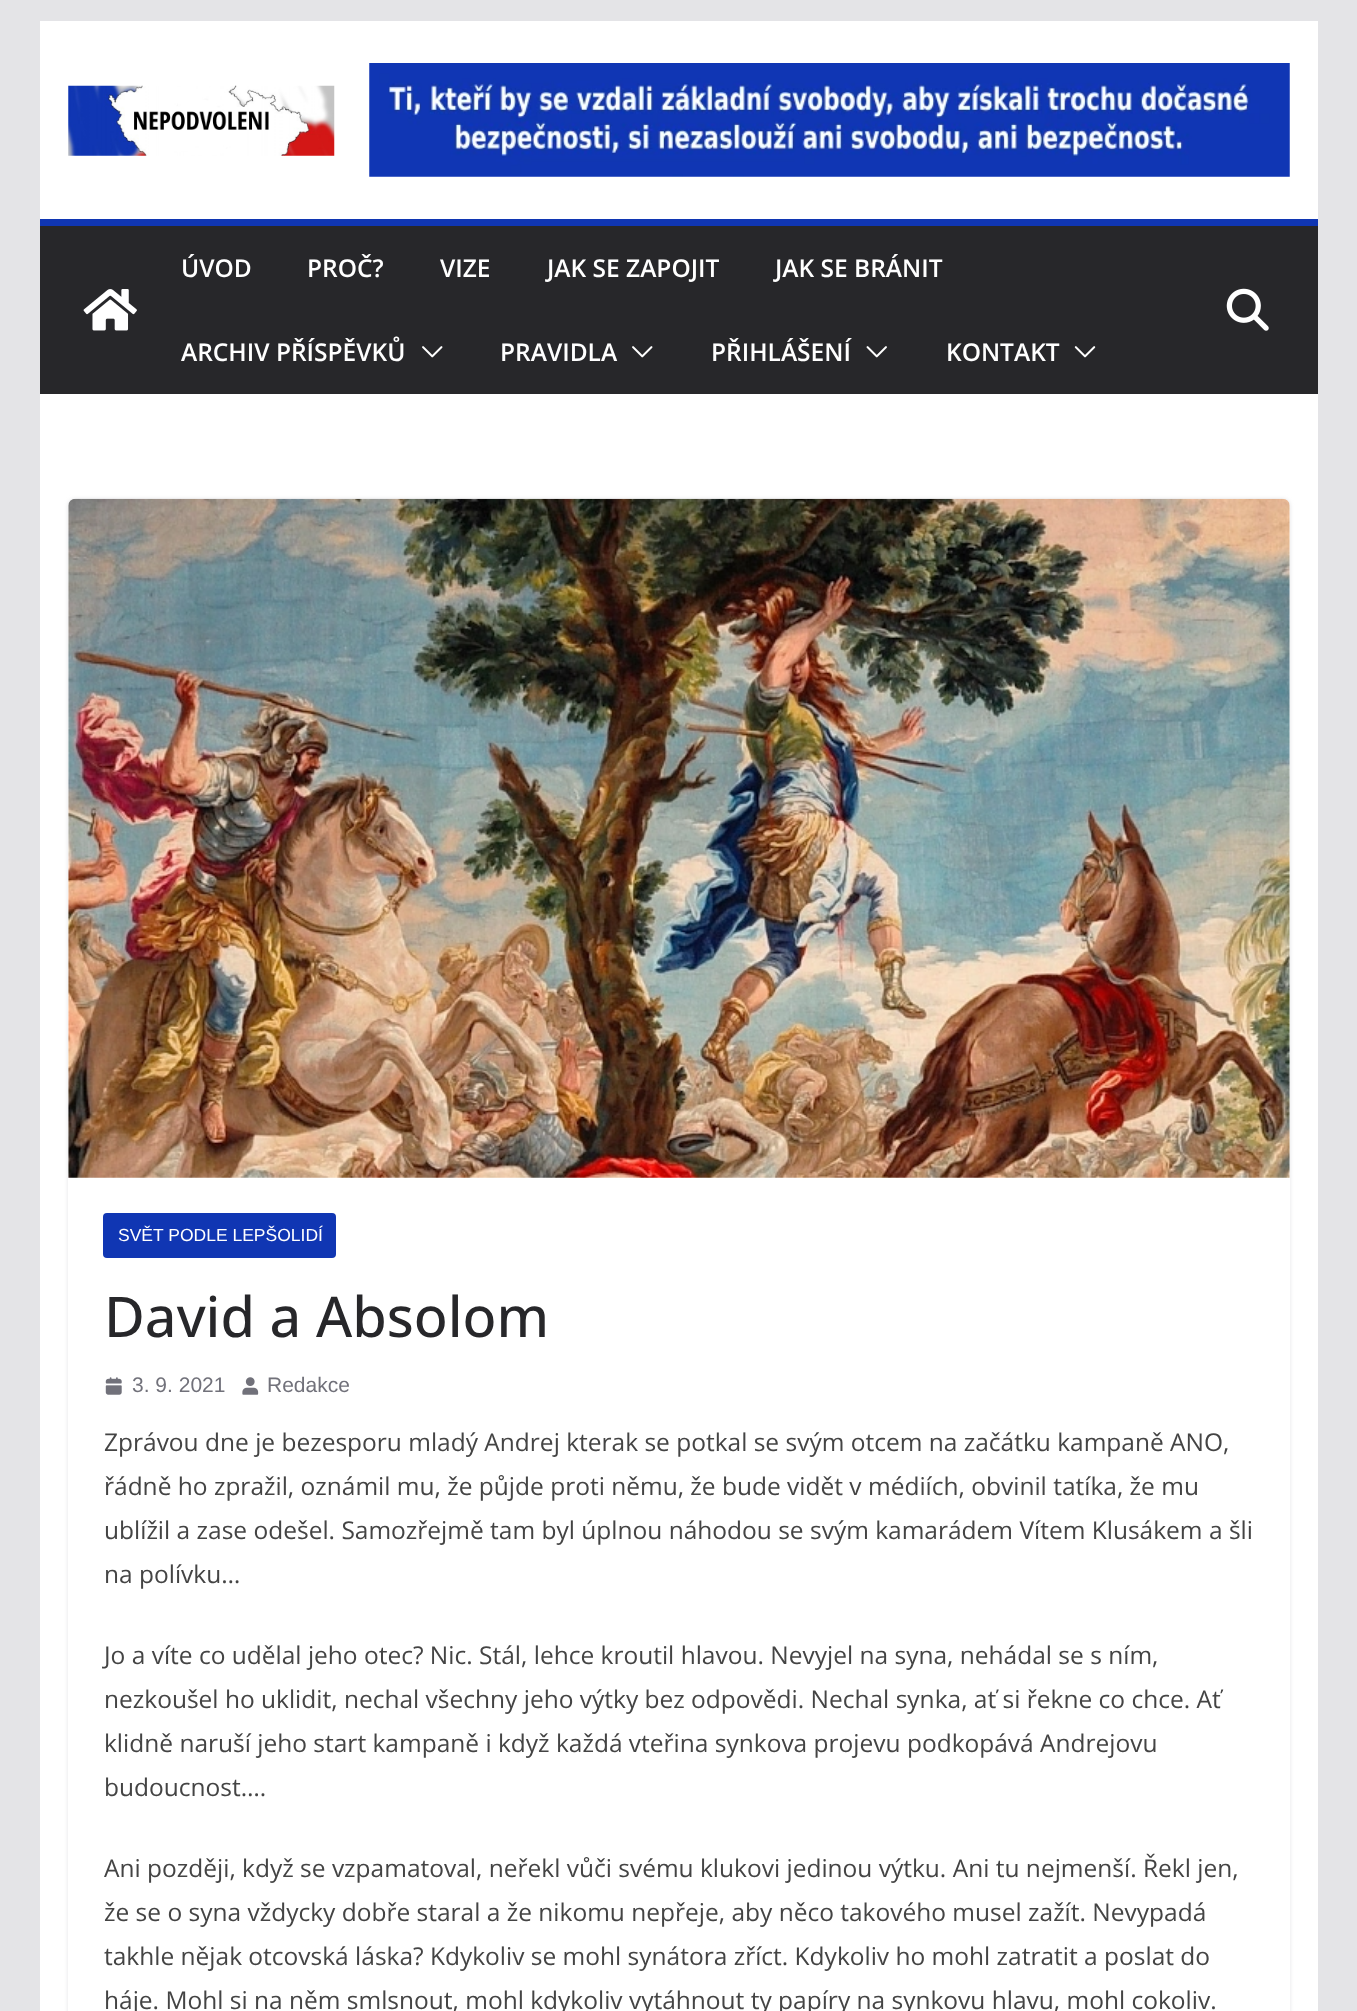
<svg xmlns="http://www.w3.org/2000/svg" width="1357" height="2011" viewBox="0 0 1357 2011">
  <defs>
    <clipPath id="clip1"><path d="M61 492H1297V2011H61ZM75 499H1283C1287 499 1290 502 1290 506V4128C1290 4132 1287 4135 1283 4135H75C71 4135 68 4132 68 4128V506C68 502 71 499 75 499Z" clip-rule="evenodd"/></clipPath>
    <filter id="blur1" x="-50%" y="-200%" width="200%" height="500%"><feGaussianBlur stdDeviation="2"/></filter>
  </defs>
  <rect width="100%" height="100%" fill="#e4e4e7"/>
  <rect x="40" y="21" width="1278" height="198" fill="#ffffff"/>
  <image x="68" y="85" width="267" height="71" href="img1.png"/>
  <image x="369" y="63" width="921" height="114" href="img2.png"/>
  <rect x="40" y="226" width="1278" height="168" fill="#27272a"/>
  <rect x="40" y="219" width="1278" height="7" fill="#1036b3"/>
  <image x="83" y="289" width="54" height="42" href="img3.png"/>
  <text x="181" y="277" font-family="Open Sans" font-size="24.5" font-weight="600" fill="#ffffff">ÚVOD</text>
  <text x="307" y="277" font-family="Open Sans" font-size="24.5" font-weight="600" fill="#ffffff">PROČ?</text>
  <text x="440" y="277" font-family="Open Sans" font-size="24.5" font-weight="600" fill="#ffffff">VIZE</text>
  <text x="547" y="277" font-family="Open Sans" font-size="24.5" font-weight="600" fill="#ffffff">JAK SE ZAPOJIT</text>
  <text x="775" y="277" font-family="Open Sans" font-size="24.5" font-weight="600" fill="#ffffff">JAK SE BRÁNIT</text>
  <text x="181" y="361" font-family="Open Sans" font-size="24.5" font-weight="600" fill="#ffffff">ARCHIV PŘÍSPĚVKŮ</text>
  <image x="422" y="346" width="21" height="12" href="img4.png"/>
  <text x="500" y="361" font-family="Open Sans" font-size="24.5" font-weight="600" fill="#ffffff">PRAVIDLA</text>
  <image x="632" y="346" width="21" height="12" href="img4.png"/>
  <text x="711" y="361" font-family="Open Sans" font-size="24.5" font-weight="600" fill="#ffffff">PŘIHLÁŠENÍ</text>
  <image x="866" y="346" width="21" height="12" href="img5.png"/>
  <text x="946" y="361" font-family="Open Sans" font-size="24.5" font-weight="600" fill="#ffffff">KONTAKT</text>
  <image x="1074" y="346" width="22" height="12" href="img6.png"/>
  <image x="1226" y="288" width="43" height="43" href="img7.png"/>
  <rect x="40" y="394" width="1278" height="1617" fill="#ffffff"/>
  <g clip-path="url(#clip1)">
    <rect x="68" y="499" width="1222" height="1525" rx="7" fill="#e4e4e7" filter="url(#blur1)"/>
  </g>
  <image x="68" y="498" width="1222" height="680" href="img8.png"/>
  <rect x="103" y="1213" width="233" height="45" rx="4" fill="#1036b3"/>
  <text x="118" y="1241" font-family="Liberation Sans" font-size="17.5" fill="#ffffff">SVĚT PODLE LEPŠOLIDÍ</text>
  <text x="104" y="1337" font-family="Open Sans" font-size="56" font-weight="500" fill="#27272a">David a Absolom</text>
  <image x="105" y="1377" width="17" height="18" href="img9.png"/>
  <text x="132" y="1392" font-family="Liberation Sans" font-size="21" fill="#71717a">3. 9. 2021</text>
  <image x="242" y="1377" width="17" height="18" href="img10.png"/>
  <text x="267" y="1392" font-family="Liberation Sans" font-size="21" fill="#71717a">Redakce</text>
  <text x="104" y="1451" font-family="Open Sans" font-size="24.5" fill="#444444">Zprávou dne je bezesporu mladý Andrej kterak se potkal se svým otcem na začátku kampaně ANO,</text>
  <text x="104" y="1495" font-family="Open Sans" font-size="24.5" fill="#444444">řádně ho zpražil, oznámil mu, že půjde proti němu, že bude vidět v médiích, obvinil tatíka, že mu</text>
  <text x="104" y="1539" font-family="Open Sans" font-size="24.5" fill="#444444">ublížil a zase odešel. Samozřejmě tam byl úplnou náhodou se svým kamarádem Vítem Klusákem a šli</text>
  <text x="104" y="1583" font-family="Open Sans" font-size="24.5" fill="#444444">na polívku…</text>
  <text x="104" y="1664" font-family="Open Sans" font-size="24.5" fill="#444444">Jo a víte co udělal jeho otec? Nic. Stál, lehce kroutil hlavou. Nevyjel na syna, nehádal se s ním,</text>
  <text x="104" y="1708" font-family="Open Sans" font-size="24.5" fill="#444444">nezkoušel ho uklidit, nechal všechny jeho výtky bez odpovědi. Nechal synka, ať si řekne co chce. Ať</text>
  <text x="104" y="1752" font-family="Open Sans" font-size="24.5" fill="#444444">klidně naruší jeho start kampaně i když každá vteřina synkova projevu podkopává Andrejovu</text>
  <text x="104" y="1796" font-family="Open Sans" font-size="24.5" fill="#444444">budoucnost….</text>
  <text x="104" y="1877" font-family="Open Sans" font-size="24.5" fill="#444444">Ani později, když se vzpamatoval, neřekl vůči svému klukovi jedinou výtku. Ani tu nejmenší. Řekl jen,</text>
  <text x="104" y="1921" font-family="Open Sans" font-size="24.5" fill="#444444">že se o syna vždycky dobře staral a že nikomu nepřeje, aby něco takového musel zažít. Nevypadá</text>
  <text x="104" y="1965" font-family="Open Sans" font-size="24.5" fill="#444444">takhle nějak otcovská láska? Kdykoliv se mohl synátora zříct. Kdykoliv ho mohl zatratit a poslat do</text>
  <text x="104" y="2009" font-family="Open Sans" font-size="24.5" fill="#444444">háje. Mohl si na něm smlsnout, mohl kdykoliv vytáhnout ty papíry na synkovu hlavu, mohl cokoliv.</text>
</svg>
